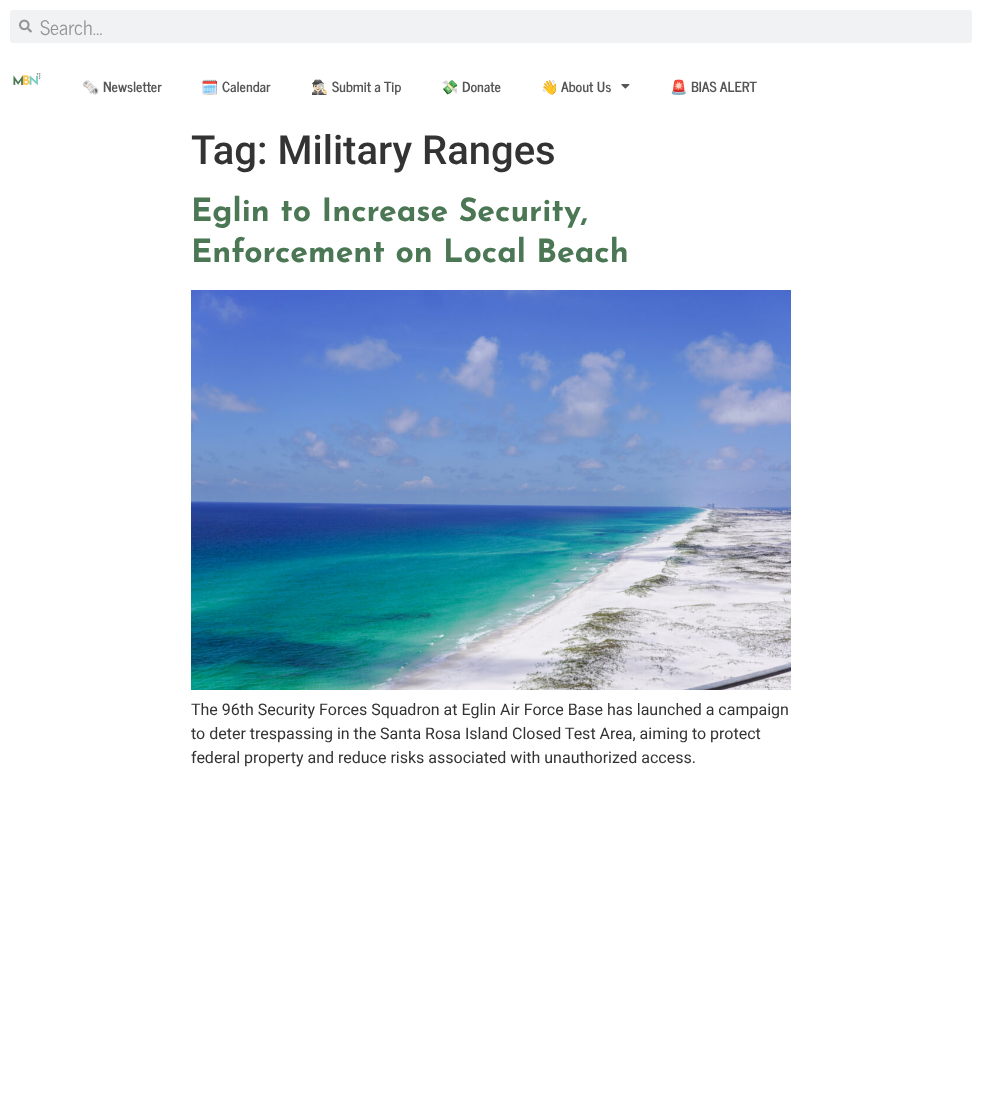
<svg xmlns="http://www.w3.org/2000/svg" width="982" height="1094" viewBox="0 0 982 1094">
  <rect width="100%" height="100%" fill="#ffffff"/>
  <rect x="10" y="10" width="962" height="33" rx="3" fill="#f1f2f3"/>
  <image x="19" y="19" width="13" height="14" href="img1.png"/>
  <text x="40" y="35" font-family="News Cycle" font-size="20" fill="#949495">Search...</text>
  <image x="13" y="73" width="28" height="13" href="img2.png"/>
  <text x="82" y="92" font-family="Noto Color Emoji" font-size="14" font-weight="bold" fill="#565656">🗞️</text>
  <text x="103" y="92" font-family="News Cycle" font-size="14" font-weight="bold" fill="#565656">Newsletter</text>
  <text x="201" y="92" font-family="Noto Color Emoji" font-size="14" font-weight="bold" fill="#565656">🗓️</text>
  <text x="222" y="92" font-family="News Cycle" font-size="14" font-weight="bold" fill="#565656">Calendar</text>
  <text x="311" y="92" font-family="Noto Color Emoji" font-size="14" font-weight="bold" fill="#565656">🕵🏻‍♂️</text>
  <text x="332" y="92" font-family="News Cycle" font-size="14" font-weight="bold" fill="#565656">Submit a Tip</text>
  <text x="441" y="92" font-family="Noto Color Emoji" font-size="14" font-weight="bold" fill="#565656">💸</text>
  <text x="462" y="92" font-family="News Cycle" font-size="14" font-weight="bold" fill="#565656">Donate</text>
  <text x="541" y="92" font-family="Noto Color Emoji" font-size="14" font-weight="bold" fill="#565656">👋</text>
  <text x="561" y="92" font-family="News Cycle" font-size="14" font-weight="bold" fill="#565656">About Us</text>
  <image x="621" y="84" width="9" height="5" href="img3.png"/>
  <text x="670" y="92" font-family="Noto Color Emoji" font-size="14" font-weight="bold" fill="#565656">🚨</text>
  <text x="691" y="92" font-family="News Cycle" font-size="14" font-weight="bold" fill="#565656">BIAS ALERT</text>
  <text x="191" y="164" font-family="Roboto" font-size="40" font-weight="500" fill="#333333">Tag: Military Ranges</text>
  <text x="191" y="221" font-family="Josefin Sans" font-size="32" font-weight="bold" fill="#4b7754">Eglin to Increase Security,</text>
  <text x="191" y="262" font-family="Josefin Sans" font-size="32" font-weight="bold" fill="#4b7754">Enforcement on Local Beach</text>
  <image x="191" y="290" width="600" height="400" href="img4.png"/>
  <text x="191" y="715" font-family="Roboto" font-size="16" fill="#333333">The 96th Security Forces Squadron at Eglin Air Force Base has launched a campaign</text>
  <text x="191" y="739" font-family="Roboto" font-size="16" fill="#333333">to deter trespassing in the Santa Rosa Island Closed Test Area, aiming to protect</text>
  <text x="191" y="763" font-family="Roboto" font-size="16" fill="#333333">federal property and reduce risks associated with unauthorized access.</text>
</svg>
